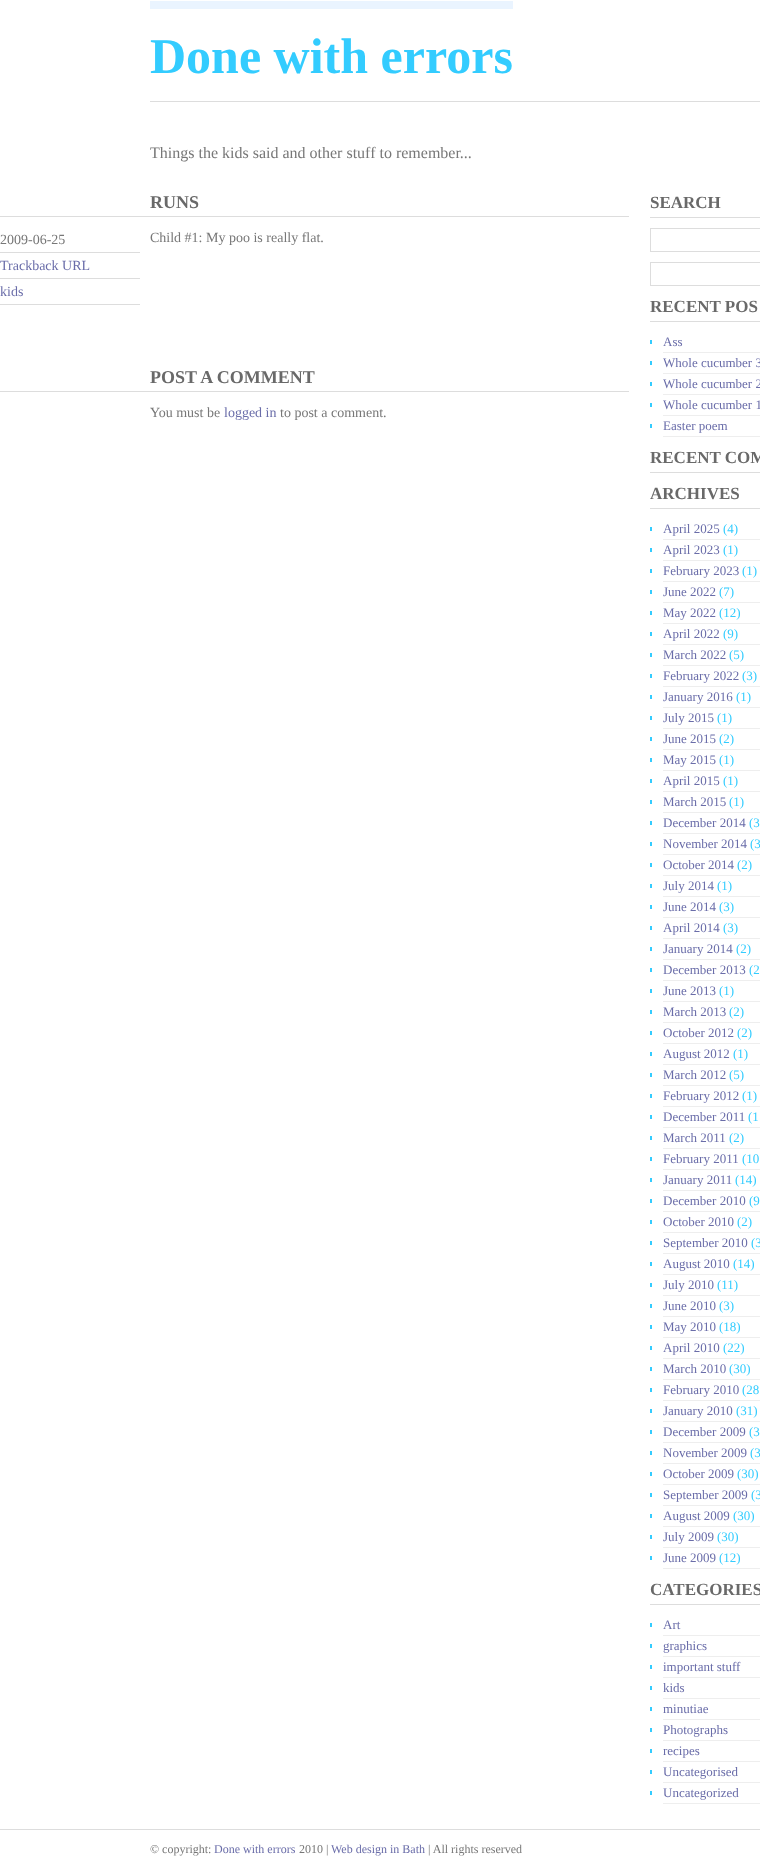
<svg xmlns="http://www.w3.org/2000/svg" width="760" height="1869" viewBox="0 0 760 1869">
  <rect width="100%" height="100%" fill="#ffffff"/>
  <rect x="150" y="101" width="610" height="1" fill="#dddddd"/>
  <text x="150" y="73" font-family="Liberation Serif" font-size="50" font-weight="bold" fill="#33ccff">Done with errors</text>
  <rect x="150" y="1" width="363" height="8" fill="#eaf4ff"/>
  <text x="150" y="158" font-family="Liberation Serif" font-size="16" fill="#777777">Things the kids said and other stuff to remember...</text>
  <rect x="0" y="216" width="629" height="1" fill="#dddddd"/>
  <text x="150" y="208" font-family="Liberation Serif" font-size="18" font-weight="bold" fill="#696969">RUNS</text>
  <rect x="0" y="252" width="140" height="1" fill="#dddddd"/>
  <text x="0" y="244" font-family="Liberation Serif" font-size="14" fill="#777777">2009-06-25</text>
  <rect x="0" y="278" width="140" height="1" fill="#dddddd"/>
  <text x="0" y="270" font-family="Liberation Serif" font-size="14" fill="#6a6da9">Trackback URL</text>
  <rect x="0" y="304" width="140" height="1" fill="#dddddd"/>
  <text x="0" y="296" font-family="Liberation Serif" font-size="14" fill="#6a6da9">kids</text>
  <text x="150" y="242" font-family="Liberation Serif" font-size="14" fill="#777777">Child #1: My poo is really flat.</text>
  <rect x="0" y="391" width="629" height="1" fill="#dddddd"/>
  <text x="150" y="383" font-family="Liberation Serif" font-size="18" font-weight="bold" fill="#696969">POST A COMMENT</text>
  <text x="150" y="417" font-family="Liberation Serif" font-size="14" fill="#777777">You must be</text>
  <text x="224" y="417" font-family="Liberation Serif" font-size="14" fill="#6a6da9">logged in</text>
  <text x="280" y="417" font-family="Liberation Serif" font-size="14" fill="#777777">to post a comment.</text>
  <rect x="650" y="217" width="110" height="1" fill="#dddddd"/>
  <text x="650" y="208" font-family="Liberation Serif" font-size="17" font-weight="bold" fill="#696969">SEARCH</text>
  <rect x="650.5" y="228.5" width="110" height="23" fill="none" stroke="#dddddd"/>
  <rect x="650.5" y="262.5" width="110" height="23" fill="none" stroke="#dddddd"/>
  <rect x="650" y="321" width="110" height="1" fill="#dddddd"/>
  <text x="650" y="312" font-family="Liberation Serif" font-size="17" font-weight="bold" fill="#696969">RECENT POS</text>
  <rect x="663" y="352" width="97" height="1" fill="#eeeeee"/>
  <rect x="650" y="340" width="2" height="4" fill="#33ccff"/>
  <text x="663" y="346" font-family="Liberation Serif" font-size="13" fill="#6a6da9">Ass</text>
  <rect x="663" y="373" width="97" height="1" fill="#eeeeee"/>
  <rect x="650" y="361" width="2" height="4" fill="#33ccff"/>
  <text x="663" y="367" font-family="Liberation Serif" font-size="13" fill="#6a6da9">Whole cucumber 3</text>
  <rect x="663" y="394" width="97" height="1" fill="#eeeeee"/>
  <rect x="650" y="382" width="2" height="4" fill="#33ccff"/>
  <text x="663" y="388" font-family="Liberation Serif" font-size="13" fill="#6a6da9">Whole cucumber 2</text>
  <rect x="663" y="415" width="97" height="1" fill="#eeeeee"/>
  <rect x="650" y="403" width="2" height="4" fill="#33ccff"/>
  <text x="663" y="409" font-family="Liberation Serif" font-size="13" fill="#6a6da9">Whole cucumber 1</text>
  <rect x="663" y="436" width="97" height="1" fill="#eeeeee"/>
  <rect x="650" y="424" width="2" height="4" fill="#33ccff"/>
  <text x="663" y="430" font-family="Liberation Serif" font-size="13" fill="#6a6da9">Easter poem</text>
  <rect x="650" y="472" width="110" height="1" fill="#dddddd"/>
  <text x="650" y="463" font-family="Liberation Serif" font-size="17" font-weight="bold" fill="#696969">RECENT COM</text>
  <rect x="650" y="508" width="110" height="1" fill="#dddddd"/>
  <text x="650" y="499" font-family="Liberation Serif" font-size="17" font-weight="bold" fill="#696969">ARCHIVES</text>
  <rect x="663" y="539" width="97" height="1" fill="#eeeeee"/>
  <rect x="650" y="527" width="2" height="4" fill="#33ccff"/>
  <text x="663" y="533" font-family="Liberation Serif" font-size="13" fill="#6a6da9">April 2025</text>
  <text x="723" y="533" font-family="Liberation Serif" font-size="13" fill="#33ccff">(4)</text>
  <rect x="663" y="560" width="97" height="1" fill="#eeeeee"/>
  <rect x="650" y="548" width="2" height="4" fill="#33ccff"/>
  <text x="663" y="554" font-family="Liberation Serif" font-size="13" fill="#6a6da9">April 2023</text>
  <text x="723" y="554" font-family="Liberation Serif" font-size="13" fill="#33ccff">(1)</text>
  <rect x="663" y="581" width="97" height="1" fill="#eeeeee"/>
  <rect x="650" y="569" width="2" height="4" fill="#33ccff"/>
  <text x="663" y="575" font-family="Liberation Serif" font-size="13" fill="#6a6da9">February 2023</text>
  <text x="742" y="575" font-family="Liberation Serif" font-size="13" fill="#33ccff">(1)</text>
  <rect x="663" y="602" width="97" height="1" fill="#eeeeee"/>
  <rect x="650" y="590" width="2" height="4" fill="#33ccff"/>
  <text x="663" y="596" font-family="Liberation Serif" font-size="13" fill="#6a6da9">June 2022</text>
  <text x="719" y="596" font-family="Liberation Serif" font-size="13" fill="#33ccff">(7)</text>
  <rect x="663" y="623" width="97" height="1" fill="#eeeeee"/>
  <rect x="650" y="611" width="2" height="4" fill="#33ccff"/>
  <text x="663" y="617" font-family="Liberation Serif" font-size="13" fill="#6a6da9">May 2022</text>
  <text x="719" y="617" font-family="Liberation Serif" font-size="13" fill="#33ccff">(12)</text>
  <rect x="663" y="644" width="97" height="1" fill="#eeeeee"/>
  <rect x="650" y="632" width="2" height="4" fill="#33ccff"/>
  <text x="663" y="638" font-family="Liberation Serif" font-size="13" fill="#6a6da9">April 2022</text>
  <text x="723" y="638" font-family="Liberation Serif" font-size="13" fill="#33ccff">(9)</text>
  <rect x="663" y="665" width="97" height="1" fill="#eeeeee"/>
  <rect x="650" y="653" width="2" height="4" fill="#33ccff"/>
  <text x="663" y="659" font-family="Liberation Serif" font-size="13" fill="#6a6da9">March 2022</text>
  <text x="729" y="659" font-family="Liberation Serif" font-size="13" fill="#33ccff">(5)</text>
  <rect x="663" y="686" width="97" height="1" fill="#eeeeee"/>
  <rect x="650" y="674" width="2" height="4" fill="#33ccff"/>
  <text x="663" y="680" font-family="Liberation Serif" font-size="13" fill="#6a6da9">February 2022</text>
  <text x="742" y="680" font-family="Liberation Serif" font-size="13" fill="#33ccff">(3)</text>
  <rect x="663" y="707" width="97" height="1" fill="#eeeeee"/>
  <rect x="650" y="695" width="2" height="4" fill="#33ccff"/>
  <text x="663" y="701" font-family="Liberation Serif" font-size="13" fill="#6a6da9">January 2016</text>
  <text x="736" y="701" font-family="Liberation Serif" font-size="13" fill="#33ccff">(1)</text>
  <rect x="663" y="728" width="97" height="1" fill="#eeeeee"/>
  <rect x="650" y="716" width="2" height="4" fill="#33ccff"/>
  <text x="663" y="722" font-family="Liberation Serif" font-size="13" fill="#6a6da9">July 2015</text>
  <text x="717" y="722" font-family="Liberation Serif" font-size="13" fill="#33ccff">(1)</text>
  <rect x="663" y="749" width="97" height="1" fill="#eeeeee"/>
  <rect x="650" y="737" width="2" height="4" fill="#33ccff"/>
  <text x="663" y="743" font-family="Liberation Serif" font-size="13" fill="#6a6da9">June 2015</text>
  <text x="719" y="743" font-family="Liberation Serif" font-size="13" fill="#33ccff">(2)</text>
  <rect x="663" y="770" width="97" height="1" fill="#eeeeee"/>
  <rect x="650" y="758" width="2" height="4" fill="#33ccff"/>
  <text x="663" y="764" font-family="Liberation Serif" font-size="13" fill="#6a6da9">May 2015</text>
  <text x="719" y="764" font-family="Liberation Serif" font-size="13" fill="#33ccff">(1)</text>
  <rect x="663" y="791" width="97" height="1" fill="#eeeeee"/>
  <rect x="650" y="779" width="2" height="4" fill="#33ccff"/>
  <text x="663" y="785" font-family="Liberation Serif" font-size="13" fill="#6a6da9">April 2015</text>
  <text x="723" y="785" font-family="Liberation Serif" font-size="13" fill="#33ccff">(1)</text>
  <rect x="663" y="812" width="97" height="1" fill="#eeeeee"/>
  <rect x="650" y="800" width="2" height="4" fill="#33ccff"/>
  <text x="663" y="806" font-family="Liberation Serif" font-size="13" fill="#6a6da9">March 2015</text>
  <text x="729" y="806" font-family="Liberation Serif" font-size="13" fill="#33ccff">(1)</text>
  <rect x="663" y="833" width="97" height="1" fill="#eeeeee"/>
  <rect x="650" y="821" width="2" height="4" fill="#33ccff"/>
  <text x="663" y="827" font-family="Liberation Serif" font-size="13" fill="#6a6da9">December 2014</text>
  <text x="749" y="827" font-family="Liberation Serif" font-size="13" fill="#33ccff">(3</text>
  <rect x="663" y="854" width="97" height="1" fill="#eeeeee"/>
  <rect x="650" y="842" width="2" height="4" fill="#33ccff"/>
  <text x="663" y="848" font-family="Liberation Serif" font-size="13" fill="#6a6da9">November 2014</text>
  <text x="750" y="848" font-family="Liberation Serif" font-size="13" fill="#33ccff">(3</text>
  <rect x="663" y="875" width="97" height="1" fill="#eeeeee"/>
  <rect x="650" y="863" width="2" height="4" fill="#33ccff"/>
  <text x="663" y="869" font-family="Liberation Serif" font-size="13" fill="#6a6da9">October 2014</text>
  <text x="737" y="869" font-family="Liberation Serif" font-size="13" fill="#33ccff">(2)</text>
  <rect x="663" y="896" width="97" height="1" fill="#eeeeee"/>
  <rect x="650" y="884" width="2" height="4" fill="#33ccff"/>
  <text x="663" y="890" font-family="Liberation Serif" font-size="13" fill="#6a6da9">July 2014</text>
  <text x="717" y="890" font-family="Liberation Serif" font-size="13" fill="#33ccff">(1)</text>
  <rect x="663" y="917" width="97" height="1" fill="#eeeeee"/>
  <rect x="650" y="905" width="2" height="4" fill="#33ccff"/>
  <text x="663" y="911" font-family="Liberation Serif" font-size="13" fill="#6a6da9">June 2014</text>
  <text x="719" y="911" font-family="Liberation Serif" font-size="13" fill="#33ccff">(3)</text>
  <rect x="663" y="938" width="97" height="1" fill="#eeeeee"/>
  <rect x="650" y="926" width="2" height="4" fill="#33ccff"/>
  <text x="663" y="932" font-family="Liberation Serif" font-size="13" fill="#6a6da9">April 2014</text>
  <text x="723" y="932" font-family="Liberation Serif" font-size="13" fill="#33ccff">(3)</text>
  <rect x="663" y="959" width="97" height="1" fill="#eeeeee"/>
  <rect x="650" y="947" width="2" height="4" fill="#33ccff"/>
  <text x="663" y="953" font-family="Liberation Serif" font-size="13" fill="#6a6da9">January 2014</text>
  <text x="736" y="953" font-family="Liberation Serif" font-size="13" fill="#33ccff">(2)</text>
  <rect x="663" y="980" width="97" height="1" fill="#eeeeee"/>
  <rect x="650" y="968" width="2" height="4" fill="#33ccff"/>
  <text x="663" y="974" font-family="Liberation Serif" font-size="13" fill="#6a6da9">December 2013</text>
  <text x="749" y="974" font-family="Liberation Serif" font-size="13" fill="#33ccff">(2</text>
  <rect x="663" y="1001" width="97" height="1" fill="#eeeeee"/>
  <rect x="650" y="989" width="2" height="4" fill="#33ccff"/>
  <text x="663" y="995" font-family="Liberation Serif" font-size="13" fill="#6a6da9">June 2013</text>
  <text x="719" y="995" font-family="Liberation Serif" font-size="13" fill="#33ccff">(1)</text>
  <rect x="663" y="1022" width="97" height="1" fill="#eeeeee"/>
  <rect x="650" y="1010" width="2" height="4" fill="#33ccff"/>
  <text x="663" y="1016" font-family="Liberation Serif" font-size="13" fill="#6a6da9">March 2013</text>
  <text x="729" y="1016" font-family="Liberation Serif" font-size="13" fill="#33ccff">(2)</text>
  <rect x="663" y="1043" width="97" height="1" fill="#eeeeee"/>
  <rect x="650" y="1031" width="2" height="4" fill="#33ccff"/>
  <text x="663" y="1037" font-family="Liberation Serif" font-size="13" fill="#6a6da9">October 2012</text>
  <text x="737" y="1037" font-family="Liberation Serif" font-size="13" fill="#33ccff">(2)</text>
  <rect x="663" y="1064" width="97" height="1" fill="#eeeeee"/>
  <rect x="650" y="1052" width="2" height="4" fill="#33ccff"/>
  <text x="663" y="1058" font-family="Liberation Serif" font-size="13" fill="#6a6da9">August 2012</text>
  <text x="733" y="1058" font-family="Liberation Serif" font-size="13" fill="#33ccff">(1)</text>
  <rect x="663" y="1085" width="97" height="1" fill="#eeeeee"/>
  <rect x="650" y="1073" width="2" height="4" fill="#33ccff"/>
  <text x="663" y="1079" font-family="Liberation Serif" font-size="13" fill="#6a6da9">March 2012</text>
  <text x="729" y="1079" font-family="Liberation Serif" font-size="13" fill="#33ccff">(5)</text>
  <rect x="663" y="1106" width="97" height="1" fill="#eeeeee"/>
  <rect x="650" y="1094" width="2" height="4" fill="#33ccff"/>
  <text x="663" y="1100" font-family="Liberation Serif" font-size="13" fill="#6a6da9">February 2012</text>
  <text x="742" y="1100" font-family="Liberation Serif" font-size="13" fill="#33ccff">(1)</text>
  <rect x="663" y="1127" width="97" height="1" fill="#eeeeee"/>
  <rect x="650" y="1115" width="2" height="4" fill="#33ccff"/>
  <text x="663" y="1121" font-family="Liberation Serif" font-size="13" fill="#6a6da9">December 2011</text>
  <text x="748" y="1121" font-family="Liberation Serif" font-size="13" fill="#33ccff">(1</text>
  <rect x="663" y="1148" width="97" height="1" fill="#eeeeee"/>
  <rect x="650" y="1136" width="2" height="4" fill="#33ccff"/>
  <text x="663" y="1142" font-family="Liberation Serif" font-size="13" fill="#6a6da9">March 2011</text>
  <text x="729" y="1142" font-family="Liberation Serif" font-size="13" fill="#33ccff">(2)</text>
  <rect x="663" y="1169" width="97" height="1" fill="#eeeeee"/>
  <rect x="650" y="1157" width="2" height="4" fill="#33ccff"/>
  <text x="663" y="1163" font-family="Liberation Serif" font-size="13" fill="#6a6da9">February 2011</text>
  <text x="742" y="1163" font-family="Liberation Serif" font-size="13" fill="#33ccff">(10</text>
  <rect x="663" y="1190" width="97" height="1" fill="#eeeeee"/>
  <rect x="650" y="1178" width="2" height="4" fill="#33ccff"/>
  <text x="663" y="1184" font-family="Liberation Serif" font-size="13" fill="#6a6da9">January 2011</text>
  <text x="735" y="1184" font-family="Liberation Serif" font-size="13" fill="#33ccff">(14)</text>
  <rect x="663" y="1211" width="97" height="1" fill="#eeeeee"/>
  <rect x="650" y="1199" width="2" height="4" fill="#33ccff"/>
  <text x="663" y="1205" font-family="Liberation Serif" font-size="13" fill="#6a6da9">December 2010</text>
  <text x="749" y="1205" font-family="Liberation Serif" font-size="13" fill="#33ccff">(9</text>
  <rect x="663" y="1232" width="97" height="1" fill="#eeeeee"/>
  <rect x="650" y="1220" width="2" height="4" fill="#33ccff"/>
  <text x="663" y="1226" font-family="Liberation Serif" font-size="13" fill="#6a6da9">October 2010</text>
  <text x="737" y="1226" font-family="Liberation Serif" font-size="13" fill="#33ccff">(2)</text>
  <rect x="663" y="1253" width="97" height="1" fill="#eeeeee"/>
  <rect x="650" y="1241" width="2" height="4" fill="#33ccff"/>
  <text x="663" y="1247" font-family="Liberation Serif" font-size="13" fill="#6a6da9">September 2010</text>
  <text x="751" y="1247" font-family="Liberation Serif" font-size="13" fill="#33ccff">(3</text>
  <rect x="663" y="1274" width="97" height="1" fill="#eeeeee"/>
  <rect x="650" y="1262" width="2" height="4" fill="#33ccff"/>
  <text x="663" y="1268" font-family="Liberation Serif" font-size="13" fill="#6a6da9">August 2010</text>
  <text x="733" y="1268" font-family="Liberation Serif" font-size="13" fill="#33ccff">(14)</text>
  <rect x="663" y="1295" width="97" height="1" fill="#eeeeee"/>
  <rect x="650" y="1283" width="2" height="4" fill="#33ccff"/>
  <text x="663" y="1289" font-family="Liberation Serif" font-size="13" fill="#6a6da9">July 2010</text>
  <text x="717" y="1289" font-family="Liberation Serif" font-size="13" fill="#33ccff">(11)</text>
  <rect x="663" y="1316" width="97" height="1" fill="#eeeeee"/>
  <rect x="650" y="1304" width="2" height="4" fill="#33ccff"/>
  <text x="663" y="1310" font-family="Liberation Serif" font-size="13" fill="#6a6da9">June 2010</text>
  <text x="719" y="1310" font-family="Liberation Serif" font-size="13" fill="#33ccff">(3)</text>
  <rect x="663" y="1337" width="97" height="1" fill="#eeeeee"/>
  <rect x="650" y="1325" width="2" height="4" fill="#33ccff"/>
  <text x="663" y="1331" font-family="Liberation Serif" font-size="13" fill="#6a6da9">May 2010</text>
  <text x="719" y="1331" font-family="Liberation Serif" font-size="13" fill="#33ccff">(18)</text>
  <rect x="663" y="1358" width="97" height="1" fill="#eeeeee"/>
  <rect x="650" y="1346" width="2" height="4" fill="#33ccff"/>
  <text x="663" y="1352" font-family="Liberation Serif" font-size="13" fill="#6a6da9">April 2010</text>
  <text x="723" y="1352" font-family="Liberation Serif" font-size="13" fill="#33ccff">(22)</text>
  <rect x="663" y="1379" width="97" height="1" fill="#eeeeee"/>
  <rect x="650" y="1367" width="2" height="4" fill="#33ccff"/>
  <text x="663" y="1373" font-family="Liberation Serif" font-size="13" fill="#6a6da9">March 2010</text>
  <text x="729" y="1373" font-family="Liberation Serif" font-size="13" fill="#33ccff">(30)</text>
  <rect x="663" y="1400" width="97" height="1" fill="#eeeeee"/>
  <rect x="650" y="1388" width="2" height="4" fill="#33ccff"/>
  <text x="663" y="1394" font-family="Liberation Serif" font-size="13" fill="#6a6da9">February 2010</text>
  <text x="742" y="1394" font-family="Liberation Serif" font-size="13" fill="#33ccff">(28</text>
  <rect x="663" y="1421" width="97" height="1" fill="#eeeeee"/>
  <rect x="650" y="1409" width="2" height="4" fill="#33ccff"/>
  <text x="663" y="1415" font-family="Liberation Serif" font-size="13" fill="#6a6da9">January 2010</text>
  <text x="736" y="1415" font-family="Liberation Serif" font-size="13" fill="#33ccff">(31)</text>
  <rect x="663" y="1442" width="97" height="1" fill="#eeeeee"/>
  <rect x="650" y="1430" width="2" height="4" fill="#33ccff"/>
  <text x="663" y="1436" font-family="Liberation Serif" font-size="13" fill="#6a6da9">December 2009</text>
  <text x="749" y="1436" font-family="Liberation Serif" font-size="13" fill="#33ccff">(3</text>
  <rect x="663" y="1463" width="97" height="1" fill="#eeeeee"/>
  <rect x="650" y="1451" width="2" height="4" fill="#33ccff"/>
  <text x="663" y="1457" font-family="Liberation Serif" font-size="13" fill="#6a6da9">November 2009</text>
  <text x="750" y="1457" font-family="Liberation Serif" font-size="13" fill="#33ccff">(3</text>
  <rect x="663" y="1484" width="97" height="1" fill="#eeeeee"/>
  <rect x="650" y="1472" width="2" height="4" fill="#33ccff"/>
  <text x="663" y="1478" font-family="Liberation Serif" font-size="13" fill="#6a6da9">October 2009</text>
  <text x="737" y="1478" font-family="Liberation Serif" font-size="13" fill="#33ccff">(30)</text>
  <rect x="663" y="1505" width="97" height="1" fill="#eeeeee"/>
  <rect x="650" y="1493" width="2" height="4" fill="#33ccff"/>
  <text x="663" y="1499" font-family="Liberation Serif" font-size="13" fill="#6a6da9">September 2009</text>
  <text x="751" y="1499" font-family="Liberation Serif" font-size="13" fill="#33ccff">(3</text>
  <rect x="663" y="1526" width="97" height="1" fill="#eeeeee"/>
  <rect x="650" y="1514" width="2" height="4" fill="#33ccff"/>
  <text x="663" y="1520" font-family="Liberation Serif" font-size="13" fill="#6a6da9">August 2009</text>
  <text x="733" y="1520" font-family="Liberation Serif" font-size="13" fill="#33ccff">(30)</text>
  <rect x="663" y="1547" width="97" height="1" fill="#eeeeee"/>
  <rect x="650" y="1535" width="2" height="4" fill="#33ccff"/>
  <text x="663" y="1541" font-family="Liberation Serif" font-size="13" fill="#6a6da9">July 2009</text>
  <text x="717" y="1541" font-family="Liberation Serif" font-size="13" fill="#33ccff">(30)</text>
  <rect x="663" y="1568" width="97" height="1" fill="#eeeeee"/>
  <rect x="650" y="1556" width="2" height="4" fill="#33ccff"/>
  <text x="663" y="1562" font-family="Liberation Serif" font-size="13" fill="#6a6da9">June 2009</text>
  <text x="719" y="1562" font-family="Liberation Serif" font-size="13" fill="#33ccff">(12)</text>
  <rect x="650" y="1604" width="110" height="1" fill="#dddddd"/>
  <text x="650" y="1595" font-family="Liberation Serif" font-size="17" font-weight="bold" fill="#696969">CATEGORIES</text>
  <rect x="663" y="1635" width="97" height="1" fill="#eeeeee"/>
  <rect x="650" y="1623" width="2" height="4" fill="#33ccff"/>
  <text x="663" y="1629" font-family="Liberation Serif" font-size="13" fill="#6a6da9">Art</text>
  <rect x="663" y="1656" width="97" height="1" fill="#eeeeee"/>
  <rect x="650" y="1644" width="2" height="4" fill="#33ccff"/>
  <text x="663" y="1650" font-family="Liberation Serif" font-size="13" fill="#6a6da9">graphics</text>
  <rect x="663" y="1677" width="97" height="1" fill="#eeeeee"/>
  <rect x="650" y="1665" width="2" height="4" fill="#33ccff"/>
  <text x="663" y="1671" font-family="Liberation Serif" font-size="13" fill="#6a6da9">important stuff</text>
  <rect x="663" y="1698" width="97" height="1" fill="#eeeeee"/>
  <rect x="650" y="1686" width="2" height="4" fill="#33ccff"/>
  <text x="663" y="1692" font-family="Liberation Serif" font-size="13" fill="#6a6da9">kids</text>
  <rect x="663" y="1719" width="97" height="1" fill="#eeeeee"/>
  <rect x="650" y="1707" width="2" height="4" fill="#33ccff"/>
  <text x="663" y="1713" font-family="Liberation Serif" font-size="13" fill="#6a6da9">minutiae</text>
  <rect x="663" y="1740" width="97" height="1" fill="#eeeeee"/>
  <rect x="650" y="1728" width="2" height="4" fill="#33ccff"/>
  <text x="663" y="1734" font-family="Liberation Serif" font-size="13" fill="#6a6da9">Photographs</text>
  <rect x="663" y="1761" width="97" height="1" fill="#eeeeee"/>
  <rect x="650" y="1749" width="2" height="4" fill="#33ccff"/>
  <text x="663" y="1755" font-family="Liberation Serif" font-size="13" fill="#6a6da9">recipes</text>
  <rect x="663" y="1782" width="97" height="1" fill="#eeeeee"/>
  <rect x="650" y="1770" width="2" height="4" fill="#33ccff"/>
  <text x="663" y="1776" font-family="Liberation Serif" font-size="13" fill="#6a6da9">Uncategorised</text>
  <rect x="663" y="1803" width="97" height="1" fill="#eeeeee"/>
  <rect x="650" y="1791" width="2" height="4" fill="#33ccff"/>
  <text x="663" y="1797" font-family="Liberation Serif" font-size="13" fill="#6a6da9">Uncategorized</text>
  <rect x="0" y="1829" width="760" height="1" fill="#dddddd"/>
  <text x="150" y="1853" font-family="Liberation Serif" font-size="12" fill="#777777">© copyright:</text>
  <text x="214" y="1853" font-family="Liberation Serif" font-size="12" fill="#6a6da9">Done with errors</text>
  <text x="299" y="1853" font-family="Liberation Serif" font-size="12" fill="#777777">2010 |</text>
  <text x="331" y="1853" font-family="Liberation Serif" font-size="12" fill="#6a6da9">Web design in Bath</text>
  <text x="428" y="1853" font-family="Liberation Serif" font-size="12" fill="#777777">| All rights reserved</text>
</svg>
